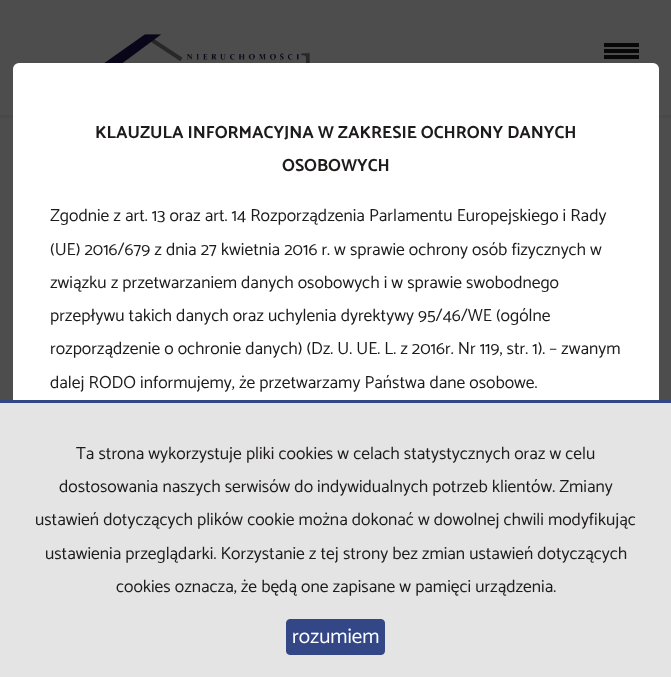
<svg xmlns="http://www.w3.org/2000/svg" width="671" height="677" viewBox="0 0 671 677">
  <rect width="100%" height="100%" fill="#4d4d4d"/>
  <rect x="0" y="115" width="671" height="3" fill="#494949"/>
  <image x="104" y="34" width="206" height="29" href="img1.png"/>
  <rect x="604" y="43" width="35" height="4" fill="#090808"/>
  <rect x="604" y="49" width="35" height="4" fill="#090808"/>
  <rect x="604" y="55" width="35" height="4" fill="#090808"/>
  <rect x="13" y="63" width="646" height="492" rx="6" fill="#ffffff"/>
  <text x="95" y="138" font-family="Catamaran" font-size="17.5" font-weight="bold" fill="#1e1b1b">KLAUZULA INFORMACYJNA W ZAKRESIE OCHRONY DANYCH</text>
  <text x="282" y="171" font-family="Catamaran" font-size="17.5" font-weight="bold" fill="#1e1b1b">OSOBOWYCH</text>
  <text x="50" y="221" font-family="Catamaran" font-size="17.5" fill="#1e1b1b">Zgodnie z art. 13 oraz art. 14 Rozporządzenia Parlamentu Europejskiego i Rady</text>
  <text x="50" y="255" font-family="Catamaran" font-size="17.5" fill="#1e1b1b">(UE) 2016/679 z dnia 27 kwietnia 2016 r. w sprawie ochrony osób fizycznych w</text>
  <text x="50" y="288" font-family="Catamaran" font-size="17.5" fill="#1e1b1b">związku z przetwarzaniem danych osobowych i w sprawie swobodnego</text>
  <text x="50" y="321" font-family="Catamaran" font-size="17.5" fill="#1e1b1b">przepływu takich danych oraz uchylenia dyrektywy 95/46/WE (ogólne</text>
  <text x="50" y="354" font-family="Catamaran" font-size="17.5" fill="#1e1b1b">rozporządzenie o ochronie danych) (Dz. U. UE. L. z 2016r. Nr 119, str. 1). – zwanym</text>
  <text x="50" y="388" font-family="Catamaran" font-size="17.5" fill="#1e1b1b">dalej RODO informujemy, że przetwarzamy Państwa dane osobowe.</text>
  <rect x="0" y="403" width="671" height="274" fill="#e4e4e4"/>
  <rect x="0" y="400" width="671" height="3" fill="#324685"/>
  <text x="76" y="459" font-family="Catamaran" font-size="17.5" fill="#1e1b1b">Ta strona wykorzystuje pliki cookies w celach statystycznych oraz w celu</text>
  <text x="59" y="492" font-family="Catamaran" font-size="17.5" fill="#1e1b1b">dostosowania naszych serwisów do indywidualnych potrzeb klientów. Zmiany</text>
  <text x="35" y="525" font-family="Catamaran" font-size="17.5" fill="#1e1b1b">ustawień dotyczących plików cookie można dokonać w dowolnej chwili modyfikując</text>
  <text x="45" y="559" font-family="Catamaran" font-size="17.5" fill="#1e1b1b">ustawienia przeglądarki. Korzystanie z tej strony bez zmian ustawień dotyczących</text>
  <text x="116" y="592" font-family="Catamaran" font-size="17.5" fill="#1e1b1b">cookies oznacza, że będą one zapisane w pamięci urządzenia.</text>
  <rect x="286.5" y="619.5" width="98" height="35" rx="3.5" fill="#334787" stroke="#334787"/>
  <text x="292" y="643" font-family="Catamaran" font-size="21" fill="#ffffff">rozumiem</text>
</svg>
